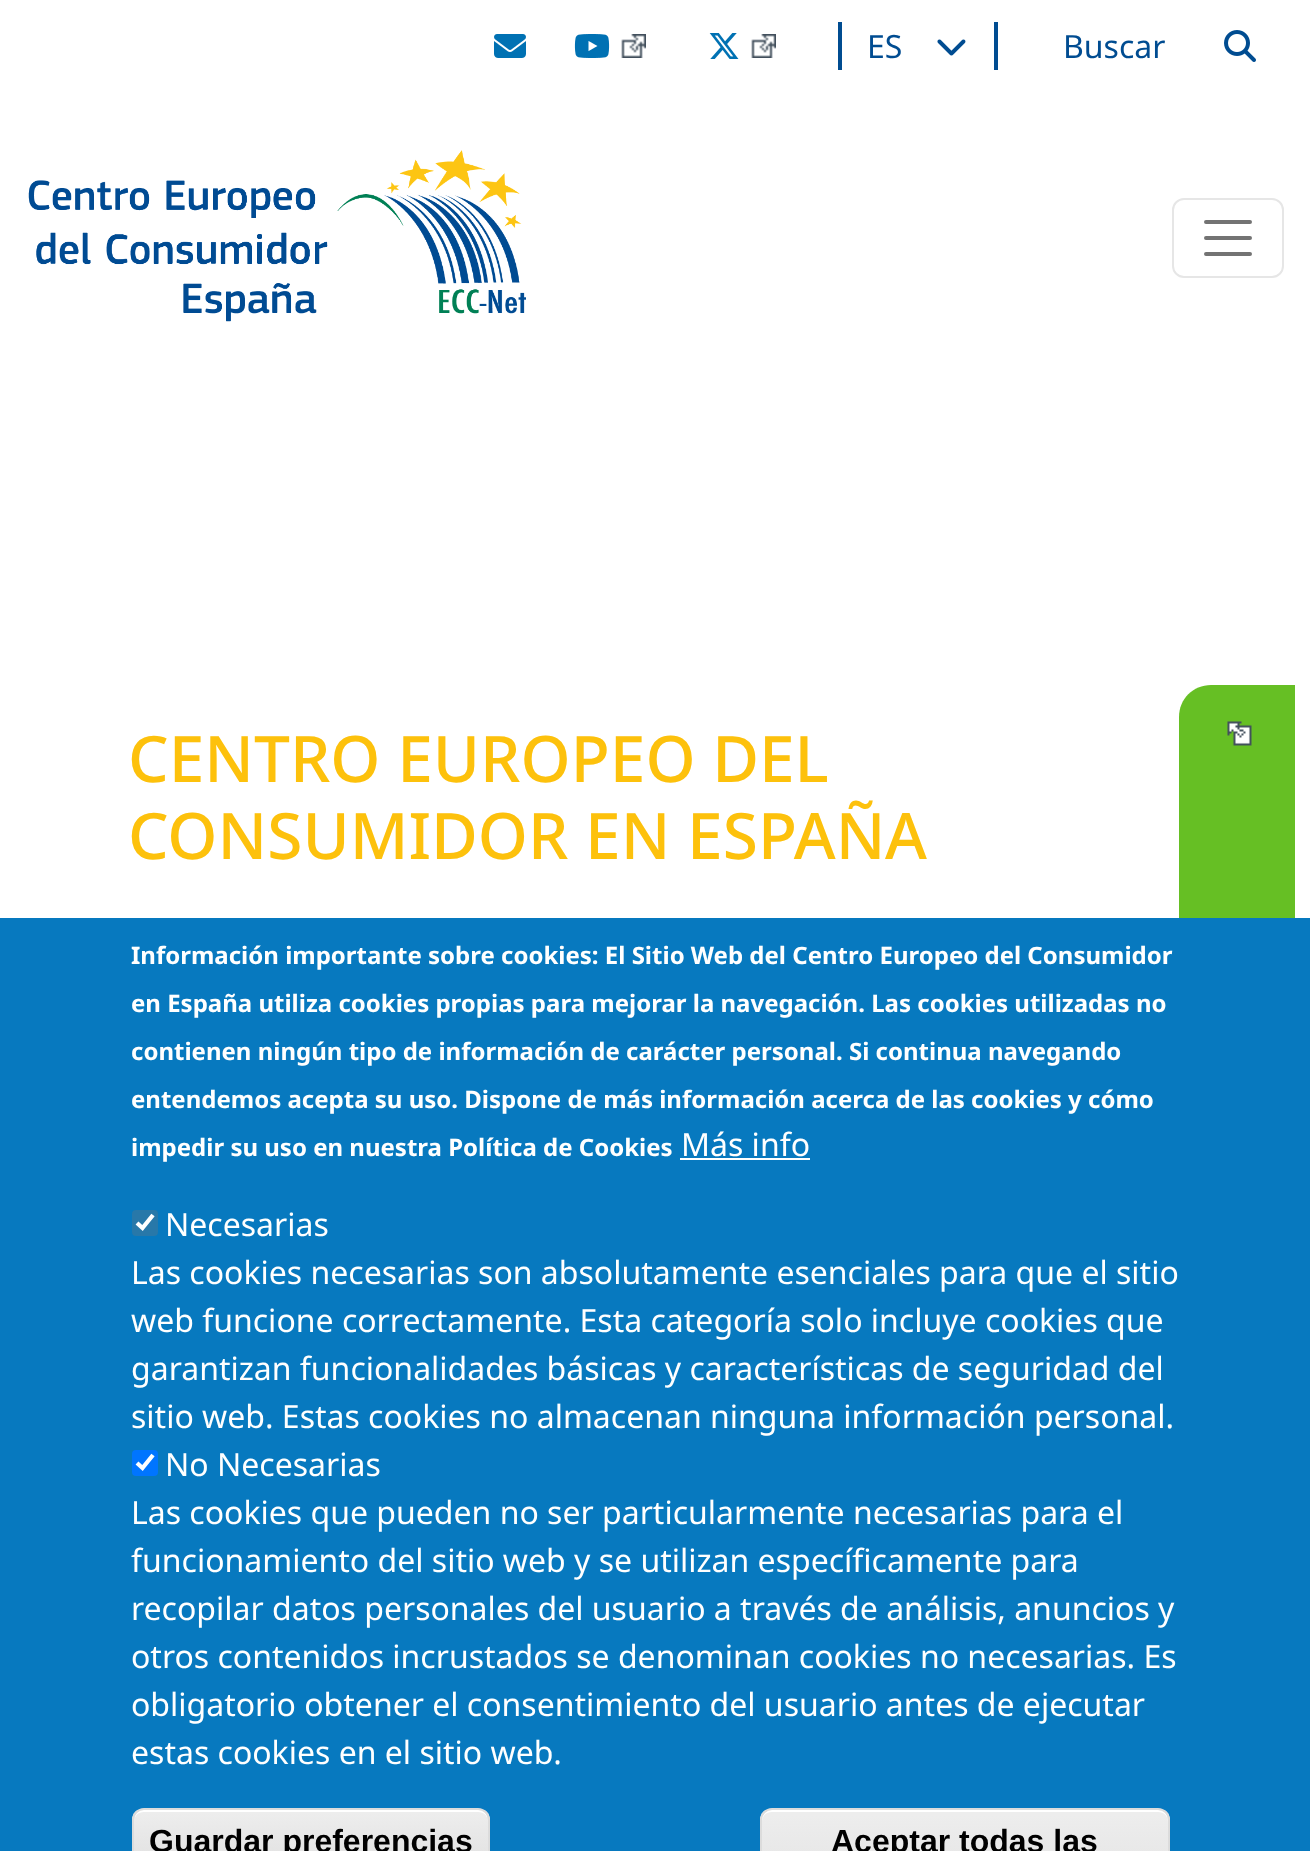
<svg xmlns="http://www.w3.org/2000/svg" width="1310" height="1851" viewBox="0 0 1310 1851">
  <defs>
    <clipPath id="clip1"><rect x="132" y="1808" width="358" height="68" rx="12"/></clipPath>
    <linearGradient id="g1" gradientUnits="userSpaceOnUse" x1="311" y1="1810" x2="311" y2="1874"><stop offset="0.05" stop-color="#ededed"/><stop offset="1" stop-color="#dfdfdf"/></linearGradient>
    <clipPath id="clip2"><rect x="760" y="1808" width="410" height="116" rx="12"/></clipPath>
    <linearGradient id="g2" gradientUnits="userSpaceOnUse" x1="965" y1="1810" x2="965" y2="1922"><stop offset="0.05" stop-color="#ededed"/><stop offset="1" stop-color="#dfdfdf"/></linearGradient>
  </defs>
  <rect width="100%" height="100%" fill="#ffffff"/>
  <image x="494" y="34" width="32" height="24" href="img1.png"/>
  <image x="574" y="34" width="36" height="24" href="img2.png"/>
  <image x="621" y="34" width="25" height="24" href="img3.png"/>
  <image x="709" y="33" width="30" height="26" href="img4.png"/>
  <image x="751" y="34" width="25" height="24" href="img3.png"/>
  <rect x="994" y="22" width="4" height="48" fill="#004c91"/>
  <rect x="838" y="22" width="4" height="48" fill="#004c91"/>
  <text x="867" y="58" font-family="Noto Sans" font-size="32" fill="#004c91">ES</text>
  <image x="937" y="39" width="29" height="17" href="img5.png"/>
  <text x="1063" y="58" font-family="Noto Sans" font-size="32" fill="#004c91">Buscar</text>
  <image x="1224" y="30" width="32" height="32" href="img6.png"/>
  <image x="28" y="150" width="498" height="172" href="img7.png"/>
  <rect x="1173" y="199" width="110" height="78" rx="11" fill="none" stroke="#e6e6e6" stroke-width="2"/>
  <path d="M1206 222H1250M1206 238H1250M1206 254H1250" fill="none" stroke="#737373" stroke-width="4" stroke-linecap="round"/>
  <text x="128" y="782" font-family="Noto Sans" font-size="64" font-weight="500" fill="#fdc10c">CENTRO EUROPEO DEL</text>
  <text x="128" y="859" font-family="Noto Sans" font-size="64" font-weight="500" fill="#fdc10c">CONSUMIDOR EN ESPAÑA</text>
  <path d="M1179 1239V717C1179 699 1193 685 1211 685H1295V1271H1211C1193 1271 1179 1257 1179 1239Z" fill="#66bf24"/>
  <rect x="0" y="918" width="1310" height="933" fill="#0779bf"/>
  <text x="131" y="964" font-family="Noto Sans" font-size="24" font-weight="bold" fill="#ffffff">Información importante sobre cookies: El Sitio Web del Centro Europeo del Consumidor</text>
  <text x="131" y="1012" font-family="Noto Sans" font-size="24" font-weight="bold" fill="#ffffff">en España utiliza cookies propias para mejorar la navegación. Las cookies utilizadas no</text>
  <text x="131" y="1060" font-family="Noto Sans" font-size="24" font-weight="bold" fill="#ffffff">contienen ningún tipo de información de carácter personal. Si continua navegando</text>
  <text x="131" y="1108" font-family="Noto Sans" font-size="24" font-weight="bold" fill="#ffffff">entendemos acepta su uso. Dispone de más información acerca de las cookies y cómo</text>
  <text x="131" y="1156" font-family="Noto Sans" font-size="24" font-weight="bold" fill="#ffffff">impedir su uso en nuestra Política de Cookies</text>
  <text x="681" y="1156" font-family="Noto Sans" font-size="32" fill="#ffffff">Más info</text>
  <rect x="680" y="1158" width="130" height="2" fill="#ffffff"/>
  <rect x="132" y="1210" width="26" height="26" rx="4" fill="#2878a9"/>
  <path d="M137 1223L142.5 1228L153 1215" fill="none" stroke="#ffffff" stroke-width="4.2"/>
  <text x="165" y="1236" font-family="Noto Sans" font-size="32" fill="#ffffff">Necesarias</text>
  <text x="131" y="1284" font-family="Noto Sans" font-size="32" fill="#ffffff">Las cookies necesarias son absolutamente esenciales para que el sitio</text>
  <text x="131" y="1332" font-family="Noto Sans" font-size="32" fill="#ffffff">web funcione correctamente. Esta categoría solo incluye cookies que</text>
  <text x="131" y="1380" font-family="Noto Sans" font-size="32" fill="#ffffff">garantizan funcionalidades básicas y características de seguridad del</text>
  <text x="131" y="1428" font-family="Noto Sans" font-size="32" fill="#ffffff">sitio web. Estas cookies no almacenan ninguna información personal.</text>
  <rect x="132" y="1450" width="26" height="26" rx="4" fill="#0075ff"/>
  <path d="M137 1463L142.5 1468L153 1455" fill="none" stroke="#ffffff" stroke-width="4.2"/>
  <text x="165" y="1476" font-family="Noto Sans" font-size="32" fill="#ffffff">No Necesarias</text>
  <text x="131" y="1524" font-family="Noto Sans" font-size="32" fill="#ffffff">Las cookies que pueden no ser particularmente necesarias para el</text>
  <text x="131" y="1572" font-family="Noto Sans" font-size="32" fill="#ffffff">funcionamiento del sitio web y se utilizan específicamente para</text>
  <text x="131" y="1620" font-family="Noto Sans" font-size="32" fill="#ffffff">recopilar datos personales del usuario a través de análisis, anuncios y</text>
  <text x="131" y="1668" font-family="Noto Sans" font-size="32" fill="#ffffff">otros contenidos incrustados se denominan cookies no necesarias. Es</text>
  <text x="131" y="1716" font-family="Noto Sans" font-size="32" fill="#ffffff">obligatorio obtener el consentimiento del usuario antes de ejecutar</text>
  <text x="131" y="1764" font-family="Noto Sans" font-size="32" fill="#ffffff">estas cookies en el sitio web.</text>
  <g clip-path="url(#clip1)">
    <rect x="132" y="1810" width="358" height="41" fill="url(#g1)"/>
  </g>
  <path d="M144 1812H478C484 1812 488 1816 488 1822C488 1817 486 1811 480 1810H144C137 1810 134 1816 134 1822C134 1816 138 1812 144 1812Z" fill="#ffffff"/>
  <rect x="133" y="1809" width="356" height="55" rx="11" fill="none" stroke="#dcdcdc" stroke-width="2"/>
  <text x="149" y="1852" font-family="Liberation Sans" font-size="32" font-weight="bold" fill="#000000">Guardar preferencias</text>
  <g clip-path="url(#clip2)">
    <rect x="760" y="1810" width="410" height="41" fill="url(#g2)"/>
  </g>
  <path d="M772 1812H1158C1164 1812 1168 1816 1168 1822V1820C1168 1814 1164 1810 1158 1810H772C766 1810 762 1814 762 1820V1822C762 1816 766 1812 772 1812Z" fill="#ffffff"/>
  <rect x="761" y="1809" width="408" height="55" rx="11" fill="none" stroke="#dcdcdc" stroke-width="2"/>
  <text x="831" y="1852" font-family="Liberation Sans" font-size="32" font-weight="bold" fill="#000000">Aceptar todas las</text>
  <image x="1227" y="721" width="25" height="25" href="img8.png"/>
</svg>
